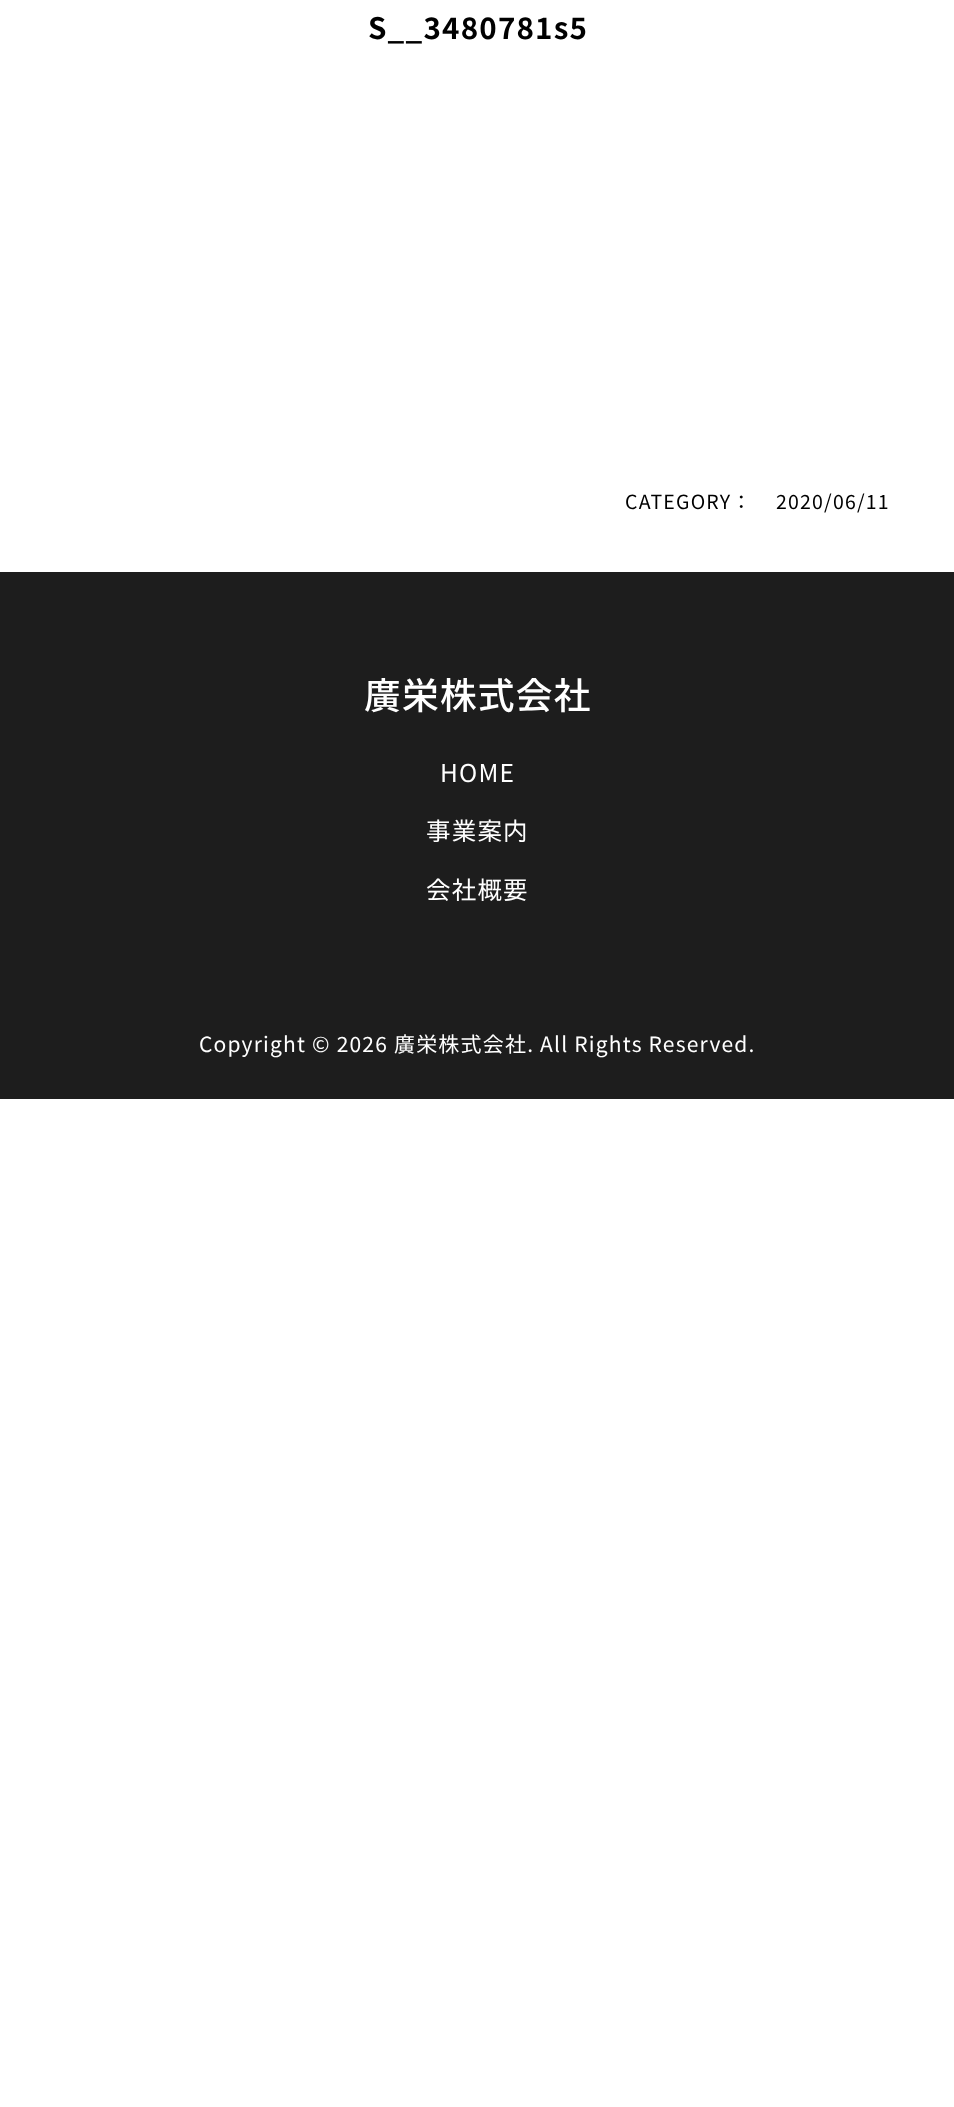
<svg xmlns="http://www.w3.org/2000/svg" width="954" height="2107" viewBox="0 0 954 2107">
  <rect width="100%" height="100%" fill="#ffffff"/>
  <text x="368" y="39" font-family="Noto Sans JP" font-size="29.5" font-weight="bold" letter-spacing="1.2" fill="#000000">S__3480781s5</text>
  <text x="625" y="509" font-family="Noto Sans JP" font-size="19.5" letter-spacing="1.2" fill="#000000">CATEGORY：</text>
  <text x="776" y="509" font-family="Noto Sans JP" font-size="19.5" letter-spacing="1.2" fill="#000000">2020/06/11</text>
  <rect x="0" y="572" width="954" height="527" fill="#1d1d1d"/>
  <text x="364" y="709" font-family="Noto Sans JP" font-size="36.75" font-weight="500" letter-spacing="1.2" fill="#ffffff">廣栄株式会社</text>
  <text x="440" y="782" font-family="Noto Sans JP" font-size="24.5" letter-spacing="1.2" fill="#ffffff">HOME</text>
  <text x="426" y="840" font-family="Noto Sans JP" font-size="24.5" letter-spacing="1.2" fill="#ffffff">事業案内</text>
  <text x="426" y="899" font-family="Noto Sans JP" font-size="24.5" letter-spacing="1.2" fill="#ffffff">会社概要</text>
  <text x="199" y="1052" font-family="Noto Sans JP" font-size="21" letter-spacing="1.2" fill="#ffffff">Copyright © 2026 廣栄株式会社. All Rights Reserved.</text>
</svg>
